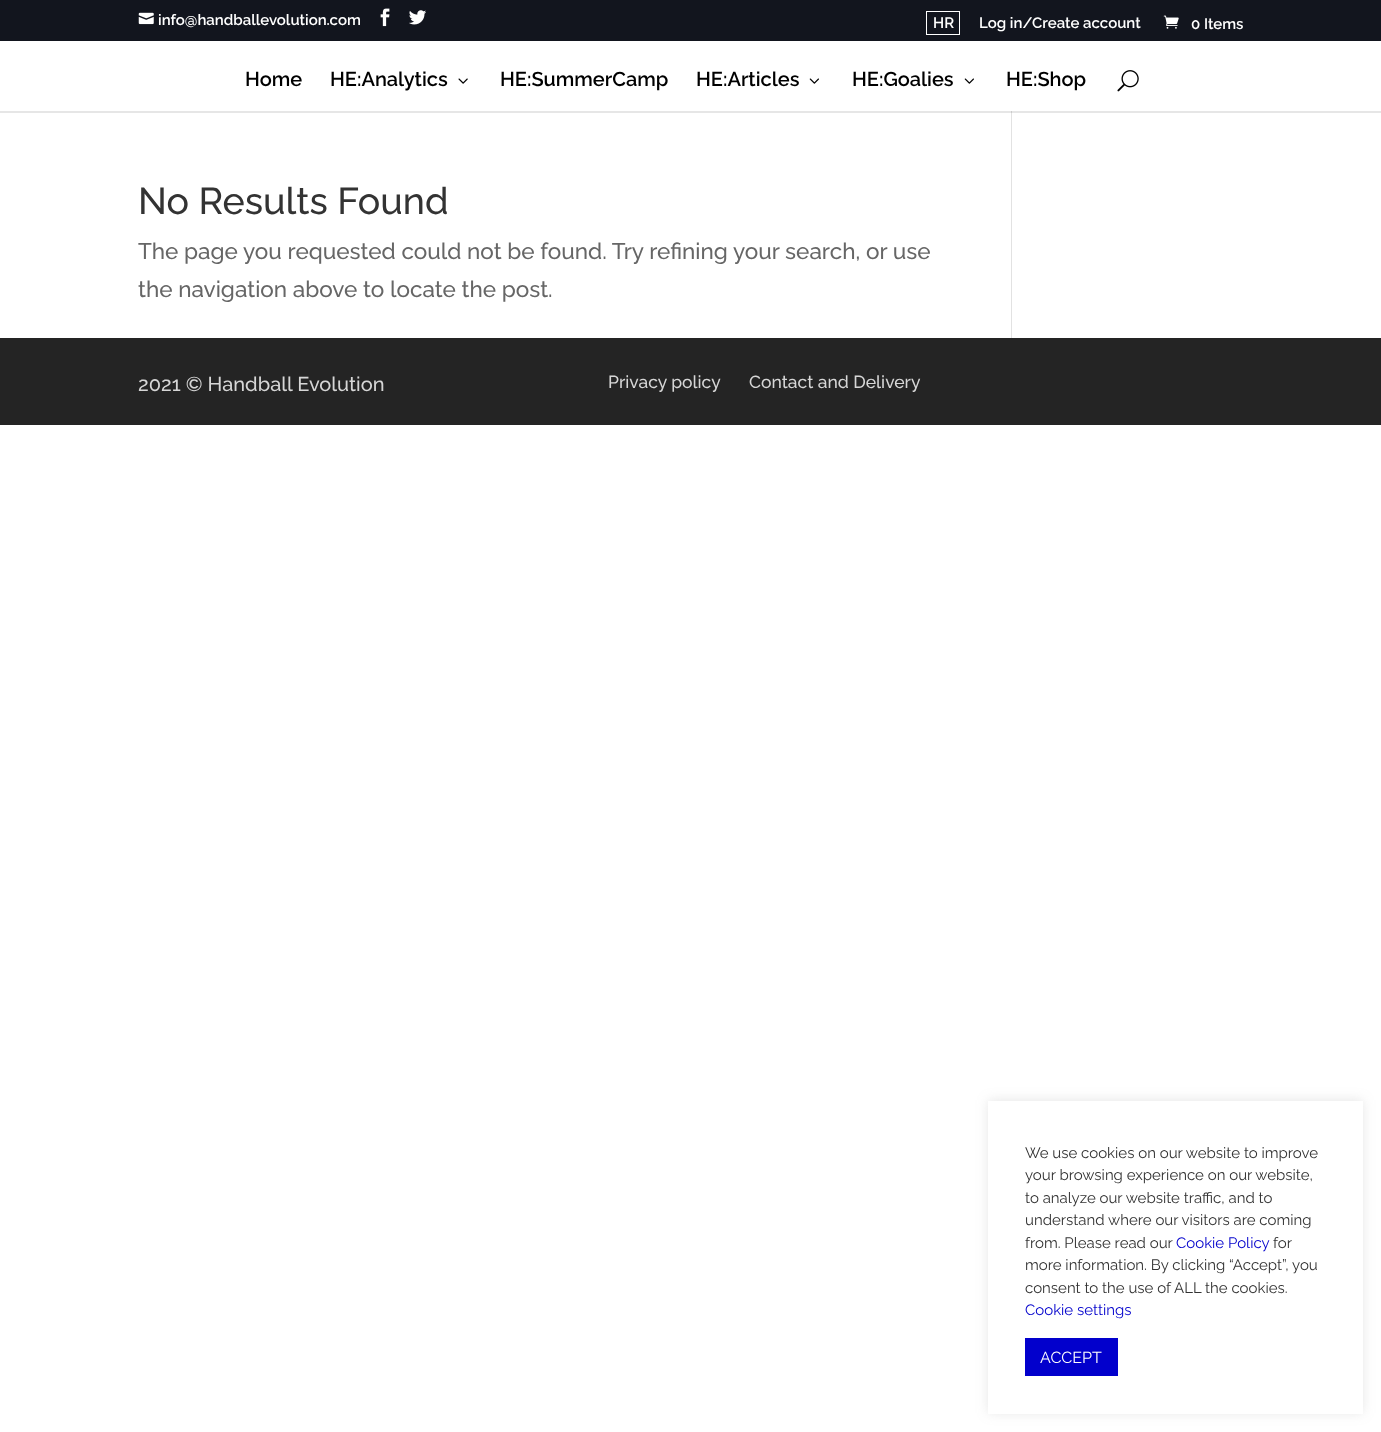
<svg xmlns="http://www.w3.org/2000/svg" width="1381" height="1432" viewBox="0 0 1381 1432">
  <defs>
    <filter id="blur1" x="-50%" y="-200%" width="200%" height="500%"><feGaussianBlur stdDeviation="6"/></filter>
  </defs>
  <rect width="100%" height="100%" fill="#ffffff"/>
  <rect x="0" y="111" width="1381" height="2" fill="#e6e6e6"/>
  <rect x="0" y="0" width="1381" height="41" fill="#12151e"/>
  <image x="138" y="12" width="16" height="13" href="img1.png"/>
  <text x="158" y="25" font-family="Raleway" font-size="15" font-weight="600" fill="#ffffff">info@handballevolution.com</text>
  <image x="380" y="8" width="10" height="19" href="img2.png"/>
  <image x="409" y="10" width="17" height="15" href="img3.png"/>
  <rect x="926.5" y="11.5" width="33" height="23" fill="none" stroke="#ffffff"/>
  <text x="933" y="28" font-family="Raleway" font-size="15" font-weight="600" fill="#ffffff">HR</text>
  <text x="979" y="28" font-family="Raleway" font-size="15" font-weight="600" fill="#ffffff">Log in/Create account</text>
  <image x="1163" y="15" width="16" height="14" href="img4.png"/>
  <text x="1191" y="29" font-family="Raleway" font-size="15" font-weight="600" fill="#ffffff">0 Items</text>
  <rect x="1011" y="110" width="1" height="228" fill="#e2e2e2"/>
  <rect x="1011" y="110" width="1" height="1" fill="#ffffff"/>
  <text x="245" y="86" font-family="Raleway" font-size="20" font-weight="600" fill="#000000">Home</text>
  <text x="330" y="86" font-family="Raleway" font-size="20" font-weight="600" fill="#000000">HE:Analytics</text>
  <image x="458" y="78" width="10" height="6" href="img5.png"/>
  <text x="500" y="86" font-family="Raleway" font-size="20" font-weight="600" fill="#000000">HE:SummerCamp</text>
  <text x="696" y="86" font-family="Raleway" font-size="20" font-weight="600" fill="#000000">HE:Articles</text>
  <image x="809" y="78" width="10" height="6" href="img6.png"/>
  <text x="852" y="86" font-family="Raleway" font-size="20" font-weight="600" fill="#000000">HE:Goalies</text>
  <image x="964" y="78" width="10" height="6" href="img6.png"/>
  <text x="1006" y="86" font-family="Raleway" font-size="20" font-weight="600" fill="#000000">HE:Shop</text>
  <image x="1117" y="70" width="22" height="22" href="img7.png"/>
  <text x="138" y="214" font-family="Raleway" font-size="37.5" font-weight="500" fill="#333333">No Results Found</text>
  <text x="138" y="259" font-family="Raleway" font-size="22.5" font-weight="500" fill="#666666">The page you requested could not be found. Try refining your search, or use</text>
  <text x="138" y="297" font-family="Raleway" font-size="22.5" font-weight="500" fill="#666666">the navigation above to locate the post.</text>
  <rect x="1011" y="111" width="1" height="2" fill="#cbcbcb"/>
  <rect x="0" y="338" width="1381" height="87" fill="#242424"/>
  <text x="138" y="391" font-family="Raleway" font-size="20" font-weight="500" fill="#d6d6d6">2021 © Handball Evolution</text>
  <text x="608" y="388" font-family="Raleway" font-size="17.5" font-weight="500" fill="#d6d6d6">Privacy policy</text>
  <text x="749" y="388" font-family="Raleway" font-size="17.5" font-weight="500" fill="#d6d6d6">Contact and Delivery</text>
  <rect x="988" y="1100" width="375" height="313" fill="#acabab" fill-opacity="0.3" filter="url(#blur1)"/>
  <rect x="988" y="1101" width="375" height="313" fill="#ffffff"/>
  <text x="1025" y="1158" font-family="Raleway" font-size="15" fill="#333333">We use cookies on our website to improve</text>
  <text x="1025" y="1180" font-family="Raleway" font-size="15" fill="#333333">your browsing experience on our website,</text>
  <text x="1025" y="1203" font-family="Raleway" font-size="15" fill="#333333">to analyze our website traffic, and to</text>
  <text x="1025" y="1225" font-family="Raleway" font-size="15" fill="#333333">understand where our visitors are coming</text>
  <text x="1025" y="1248" font-family="Raleway" font-size="15" fill="#333333">from. Please read our</text>
  <text x="1176" y="1248" font-family="Raleway" font-size="15" fill="#0200cc">Cookie Policy</text>
  <text x="1273" y="1248" font-family="Raleway" font-size="15" fill="#333333">for</text>
  <text x="1025" y="1270" font-family="Raleway" font-size="15" fill="#333333">more information. By clicking “Accept”, you</text>
  <text x="1025" y="1293" font-family="Raleway" font-size="15" fill="#333333">consent to the use of ALL the cookies.</text>
  <text x="1025" y="1315" font-family="Raleway" font-size="15" fill="#0200cc">Cookie settings</text>
  <rect x="1025" y="1338" width="93" height="38" fill="#0200cc"/>
  <text x="1040" y="1363" font-family="Raleway" font-size="16" fill="#ffffff">ACCEPT</text>
</svg>
